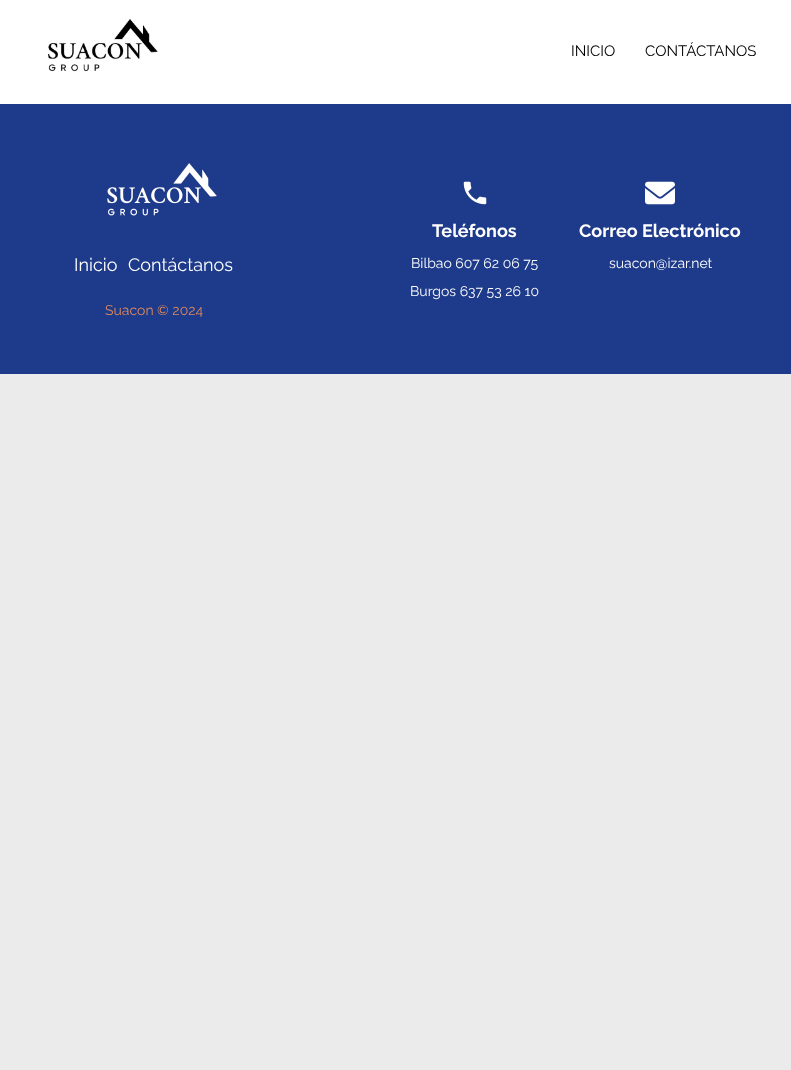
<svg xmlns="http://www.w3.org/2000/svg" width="791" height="1070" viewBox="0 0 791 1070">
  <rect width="100%" height="100%" fill="#ebebeb"/>
  <rect x="0" y="0" width="791" height="104" fill="#ffffff"/>
  <image x="48" y="19" width="110" height="53" href="img1.png"/>
  <text x="571" y="56" font-family="Raleway" font-size="15" fill="#000000">INICIO</text>
  <text x="645" y="56" font-family="Raleway" font-size="15" fill="#000000">CONTÁCTANOS</text>
  <rect x="0" y="104" width="791" height="270" fill="#1e3a8a"/>
  <image x="107" y="163" width="110" height="53" href="img2.png"/>
  <text x="74" y="271" font-family="Raleway" font-size="18" fill="#ffffff">Inicio</text>
  <text x="128" y="271" font-family="Raleway" font-size="18" fill="#ffffff">Contáctanos</text>
  <text x="105" y="315" font-family="Raleway" font-size="14" fill="#df8a5c">Suacon © 2024</text>
  <image x="463" y="181" width="24" height="24" href="img3.png"/>
  <text x="432" y="237" font-family="Raleway" font-size="18" font-weight="bold" fill="#ffffff">Teléfonos</text>
  <text x="411" y="268" font-family="Raleway" font-size="14" fill="#ffffff">Bilbao 607 62 06 75</text>
  <text x="410" y="296" font-family="Raleway" font-size="14" fill="#ffffff">Burgos 637 53 26 10</text>
  <image x="645" y="181" width="30" height="24" href="img4.png"/>
  <text x="579" y="237" font-family="Raleway" font-size="18" font-weight="bold" fill="#ffffff">Correo Electrónico</text>
  <text x="609" y="268" font-family="Raleway" font-size="14" fill="#ffffff">suacon@izar.net</text>
</svg>
